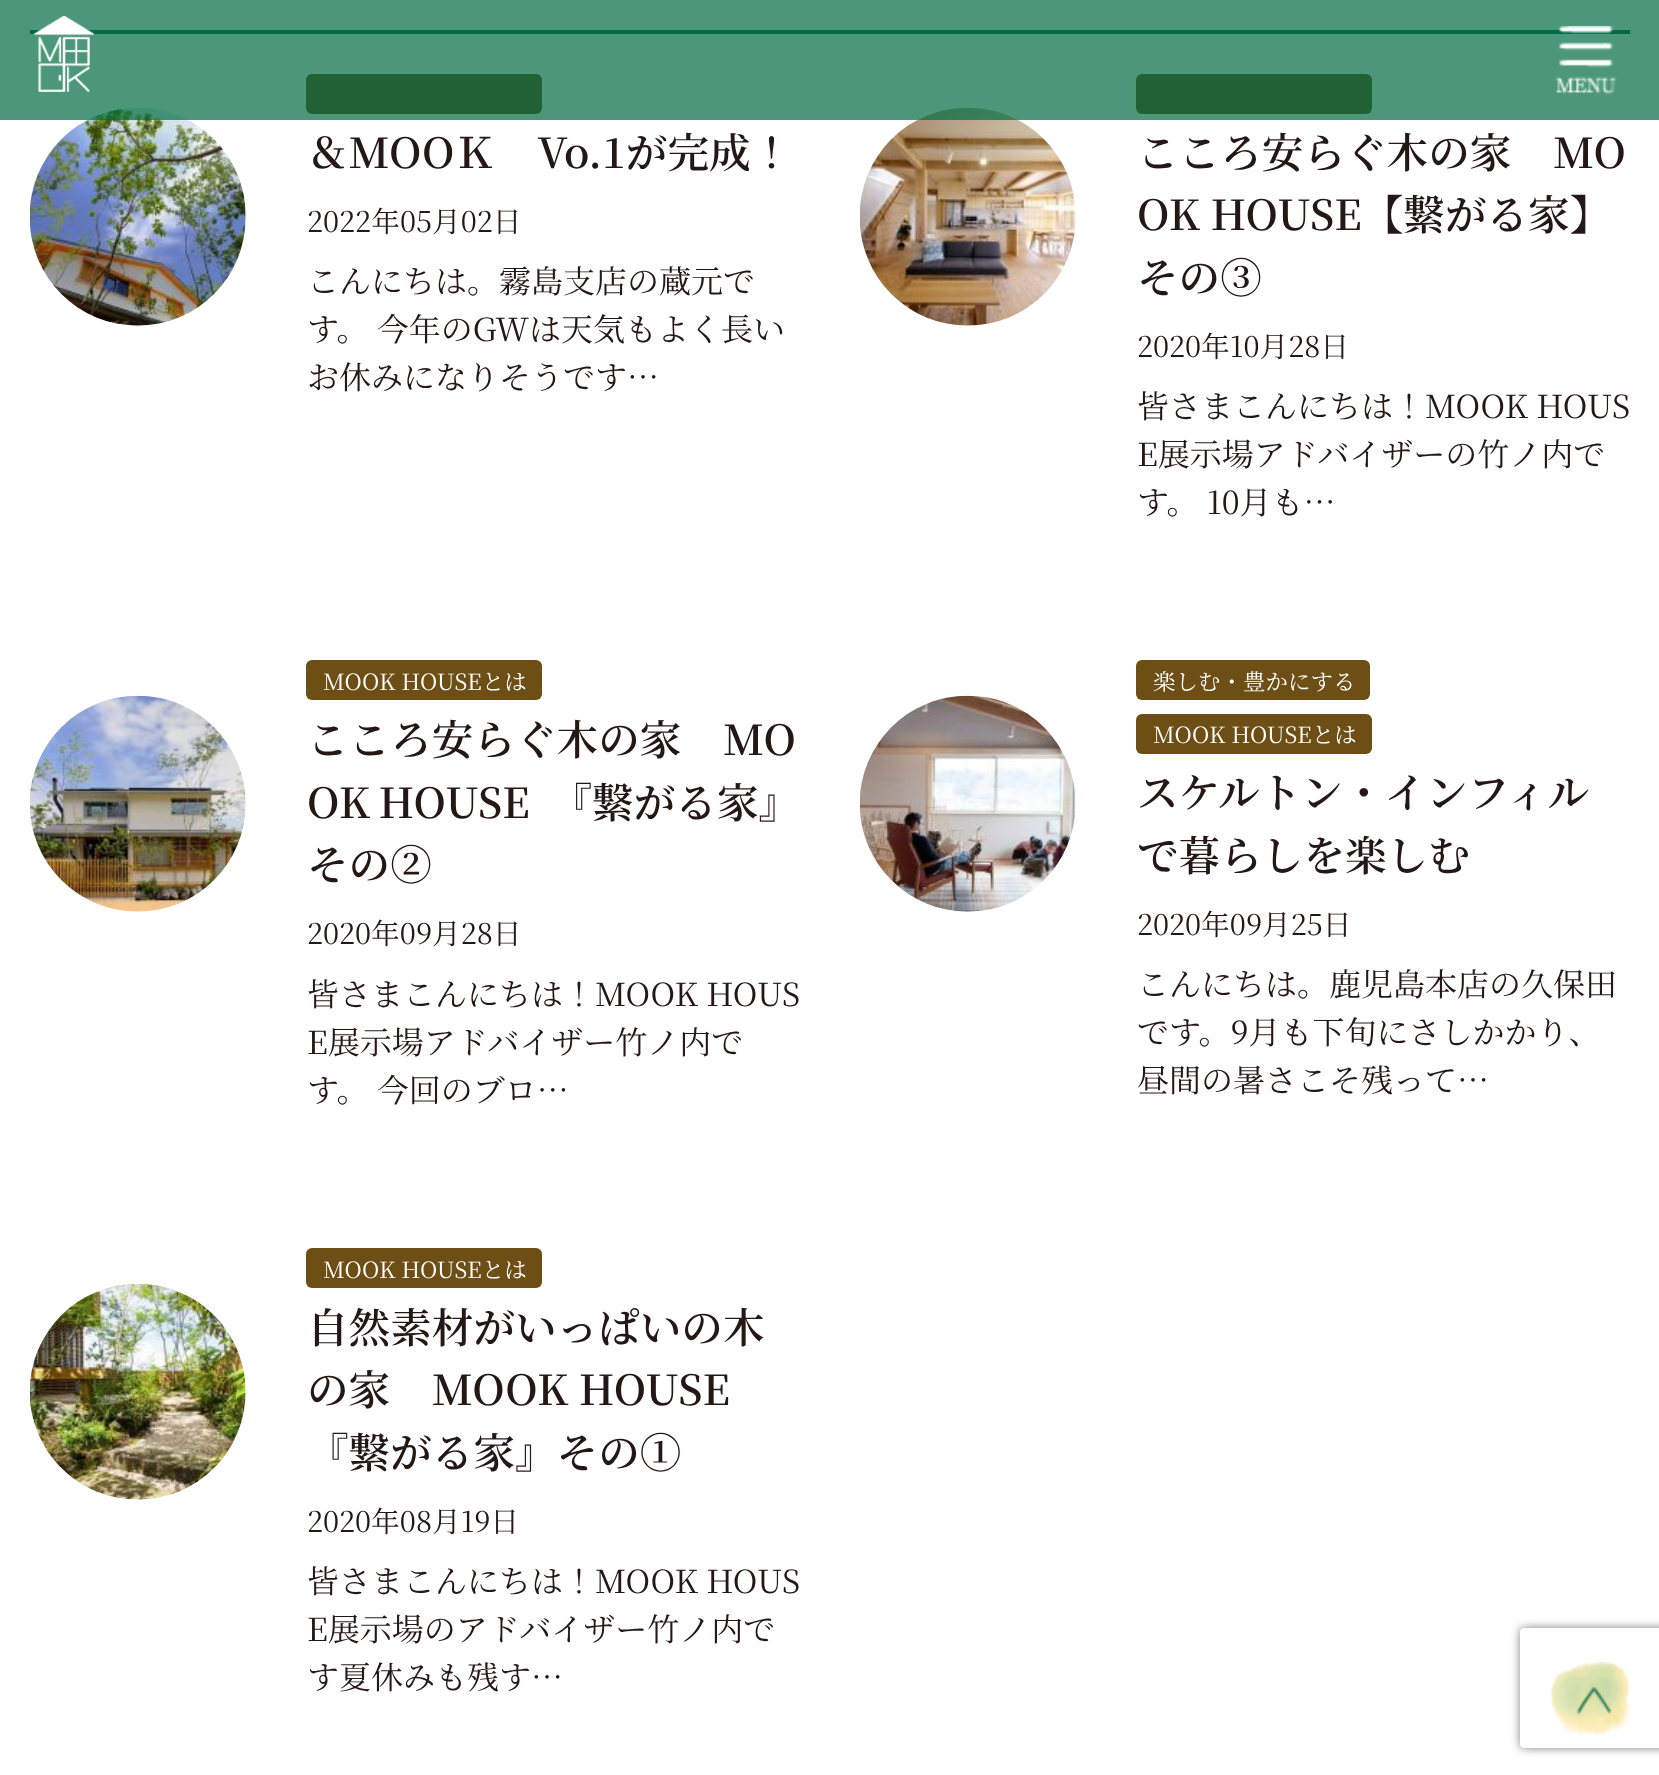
<svg xmlns="http://www.w3.org/2000/svg" width="1659" height="1775" viewBox="0 0 1659 1775">
  <defs>
    <clipPath id="clip1"><path d="M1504 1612H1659V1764H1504ZM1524 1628H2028C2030 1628 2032 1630 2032 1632V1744C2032 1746 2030 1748 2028 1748H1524C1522 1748 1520 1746 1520 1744V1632C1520 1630 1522 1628 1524 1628Z" clip-rule="evenodd"/></clipPath>
    <filter id="blur1" x="-50%" y="-200%" width="200%" height="500%"><feGaussianBlur stdDeviation="5"/></filter>
  </defs>
  <rect width="100%" height="100%" fill="#ffffff"/>
  <rect x="30" y="30" width="1600" height="4" fill="#006b41"/>
  <image x="30" y="108" width="216" height="218" href="img3.png"/>
  <rect x="306" y="74" width="236" height="40" rx="6" fill="#6d4e15"/>
  <image x="860" y="107" width="216" height="219" href="img4.png"/>
  <rect x="1136" y="74" width="236" height="40" rx="6" fill="#6d4e15"/>
  <rect x="0" y="0" width="1659" height="120" fill="#006b41" fill-opacity="0.7"/>
  <image x="33" y="16" width="61" height="76" href="img1.png"/>
  <image x="1556" y="26" width="61" height="69" href="img2.png"/>
  <text x="307" y="168" font-family="Noto Serif JP" font-size="41.6" font-weight="600" fill="#231815">＆MOOＫ　Vo.1が完成！</text>
  <text x="307" y="232" font-family="Noto Serif JP" font-size="28.75" fill="#231815">2022年05月02日</text>
  <text x="307" y="293" font-family="Noto Serif JP" font-size="32" fill="#231815">こんにちは。霧島支店の蔵元で</text>
  <text x="307" y="341" font-family="Noto Serif JP" font-size="32" fill="#231815">す。 今年のGWは天気もよく長い</text>
  <text x="307" y="389" font-family="Noto Serif JP" font-size="32" fill="#231815">お休みになりそうです…</text>
  <text x="1137" y="168" font-family="Noto Serif JP" font-size="41.6" font-weight="600" fill="#231815">こころ安らぐ木の家　MO</text>
  <text x="1137" y="230" font-family="Noto Serif JP" font-size="41.6" font-weight="600" fill="#231815">OK HOUSE【繋がる家】</text>
  <text x="1137" y="293" font-family="Noto Serif JP" font-size="41.6" font-weight="600" fill="#231815">その③</text>
  <text x="1137" y="357" font-family="Noto Serif JP" font-size="28.75" fill="#231815">2020年10月28日</text>
  <text x="1137" y="418" font-family="Noto Serif JP" font-size="32" fill="#231815">皆さまこんにちは！MOOK HOUS</text>
  <text x="1137" y="466" font-family="Noto Serif JP" font-size="32" fill="#231815">E展示場アドバイザーの竹ノ内で</text>
  <text x="1137" y="514" font-family="Noto Serif JP" font-size="32" fill="#231815">す。 10月も…</text>
  <image x="30" y="695" width="216" height="217" href="img5.png"/>
  <rect x="306" y="660" width="236" height="40" rx="6" fill="#6d4e15"/>
  <text x="323" y="690" font-family="Noto Serif JP" font-size="22.5" fill="#ffffff">MOOK HOUSEとは</text>
  <text x="307" y="755" font-family="Noto Serif JP" font-size="41.6" font-weight="600" fill="#231815">こころ安らぐ木の家　MO</text>
  <text x="307" y="818" word-spacing="-2" font-family="Noto Serif JP" font-size="41.6" font-weight="600" fill="#231815">OK HOUSE　『繋がる家』</text>
  <text x="307" y="880" font-family="Noto Serif JP" font-size="41.6" font-weight="600" fill="#231815">その②</text>
  <text x="307" y="944" font-family="Noto Serif JP" font-size="28.75" fill="#231815">2020年09月28日</text>
  <text x="307" y="1006" font-family="Noto Serif JP" font-size="32" fill="#231815">皆さまこんにちは！MOOK HOUS</text>
  <text x="307" y="1054" font-family="Noto Serif JP" font-size="32" fill="#231815">E展示場アドバイザー竹ノ内で</text>
  <text x="307" y="1102" font-family="Noto Serif JP" font-size="32" fill="#231815">す。 今回のブロ…</text>
  <image x="860" y="695" width="216" height="217" href="img6.png"/>
  <rect x="1136" y="660" width="234" height="40" rx="6" fill="#6d4e15"/>
  <text x="1153" y="690" font-family="Noto Serif JP" font-size="22.5" fill="#ffffff">楽しむ・豊かにする</text>
  <rect x="1136" y="714" width="236" height="40" rx="6" fill="#6d4e15"/>
  <text x="1153" y="743" font-family="Noto Serif JP" font-size="22.5" fill="#ffffff">MOOK HOUSEとは</text>
  <text x="1137" y="808" font-family="Noto Serif JP" font-size="41.6" font-weight="600" fill="#231815">スケルトン・インフィル</text>
  <text x="1137" y="871" font-family="Noto Serif JP" font-size="41.6" font-weight="600" fill="#231815">で暮らしを楽しむ</text>
  <text x="1137" y="935" font-family="Noto Serif JP" font-size="28.75" fill="#231815">2020年09月25日</text>
  <text x="1137" y="996" font-family="Noto Serif JP" font-size="32" fill="#231815">こんにちは。鹿児島本店の久保田</text>
  <text x="1137" y="1044" font-family="Noto Serif JP" font-size="32" fill="#231815">です。9月も下旬にさしかかり、</text>
  <text x="1137" y="1092" font-family="Noto Serif JP" font-size="32" fill="#231815">昼間の暑さこそ残って…</text>
  <image x="30" y="1284" width="216" height="216" href="img7.png"/>
  <rect x="306" y="1248" width="236" height="40" rx="6" fill="#6d4e15"/>
  <text x="323" y="1278" font-family="Noto Serif JP" font-size="22.5" fill="#ffffff">MOOK HOUSEとは</text>
  <text x="307" y="1343" font-family="Noto Serif JP" font-size="41.6" font-weight="600" fill="#231815">自然素材がいっぱいの木</text>
  <text x="307" y="1405" font-family="Noto Serif JP" font-size="41.6" font-weight="600" fill="#231815">の家　MOOK HOUSE</text>
  <text x="307" y="1468" font-family="Noto Serif JP" font-size="41.6" font-weight="600" fill="#231815">『繋がる家』その①</text>
  <text x="307" y="1532" font-family="Noto Serif JP" font-size="28.75" fill="#231815">2020年08月19日</text>
  <text x="307" y="1593" font-family="Noto Serif JP" font-size="32" fill="#231815">皆さまこんにちは！MOOK HOUS</text>
  <text x="307" y="1641" font-family="Noto Serif JP" font-size="32" fill="#231815">E展示場のアドバイザー竹ノ内で</text>
  <text x="307" y="1689" font-family="Noto Serif JP" font-size="32" fill="#231815">す夏休みも残す…</text>
  <g clip-path="url(#clip1)">
    <rect x="1520" y="1628" width="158" height="120" rx="4" fill="#808080" filter="url(#blur1)"/>
  </g>
  <image x="1550" y="1662" width="81" height="74" href="img8.png"/>
</svg>
